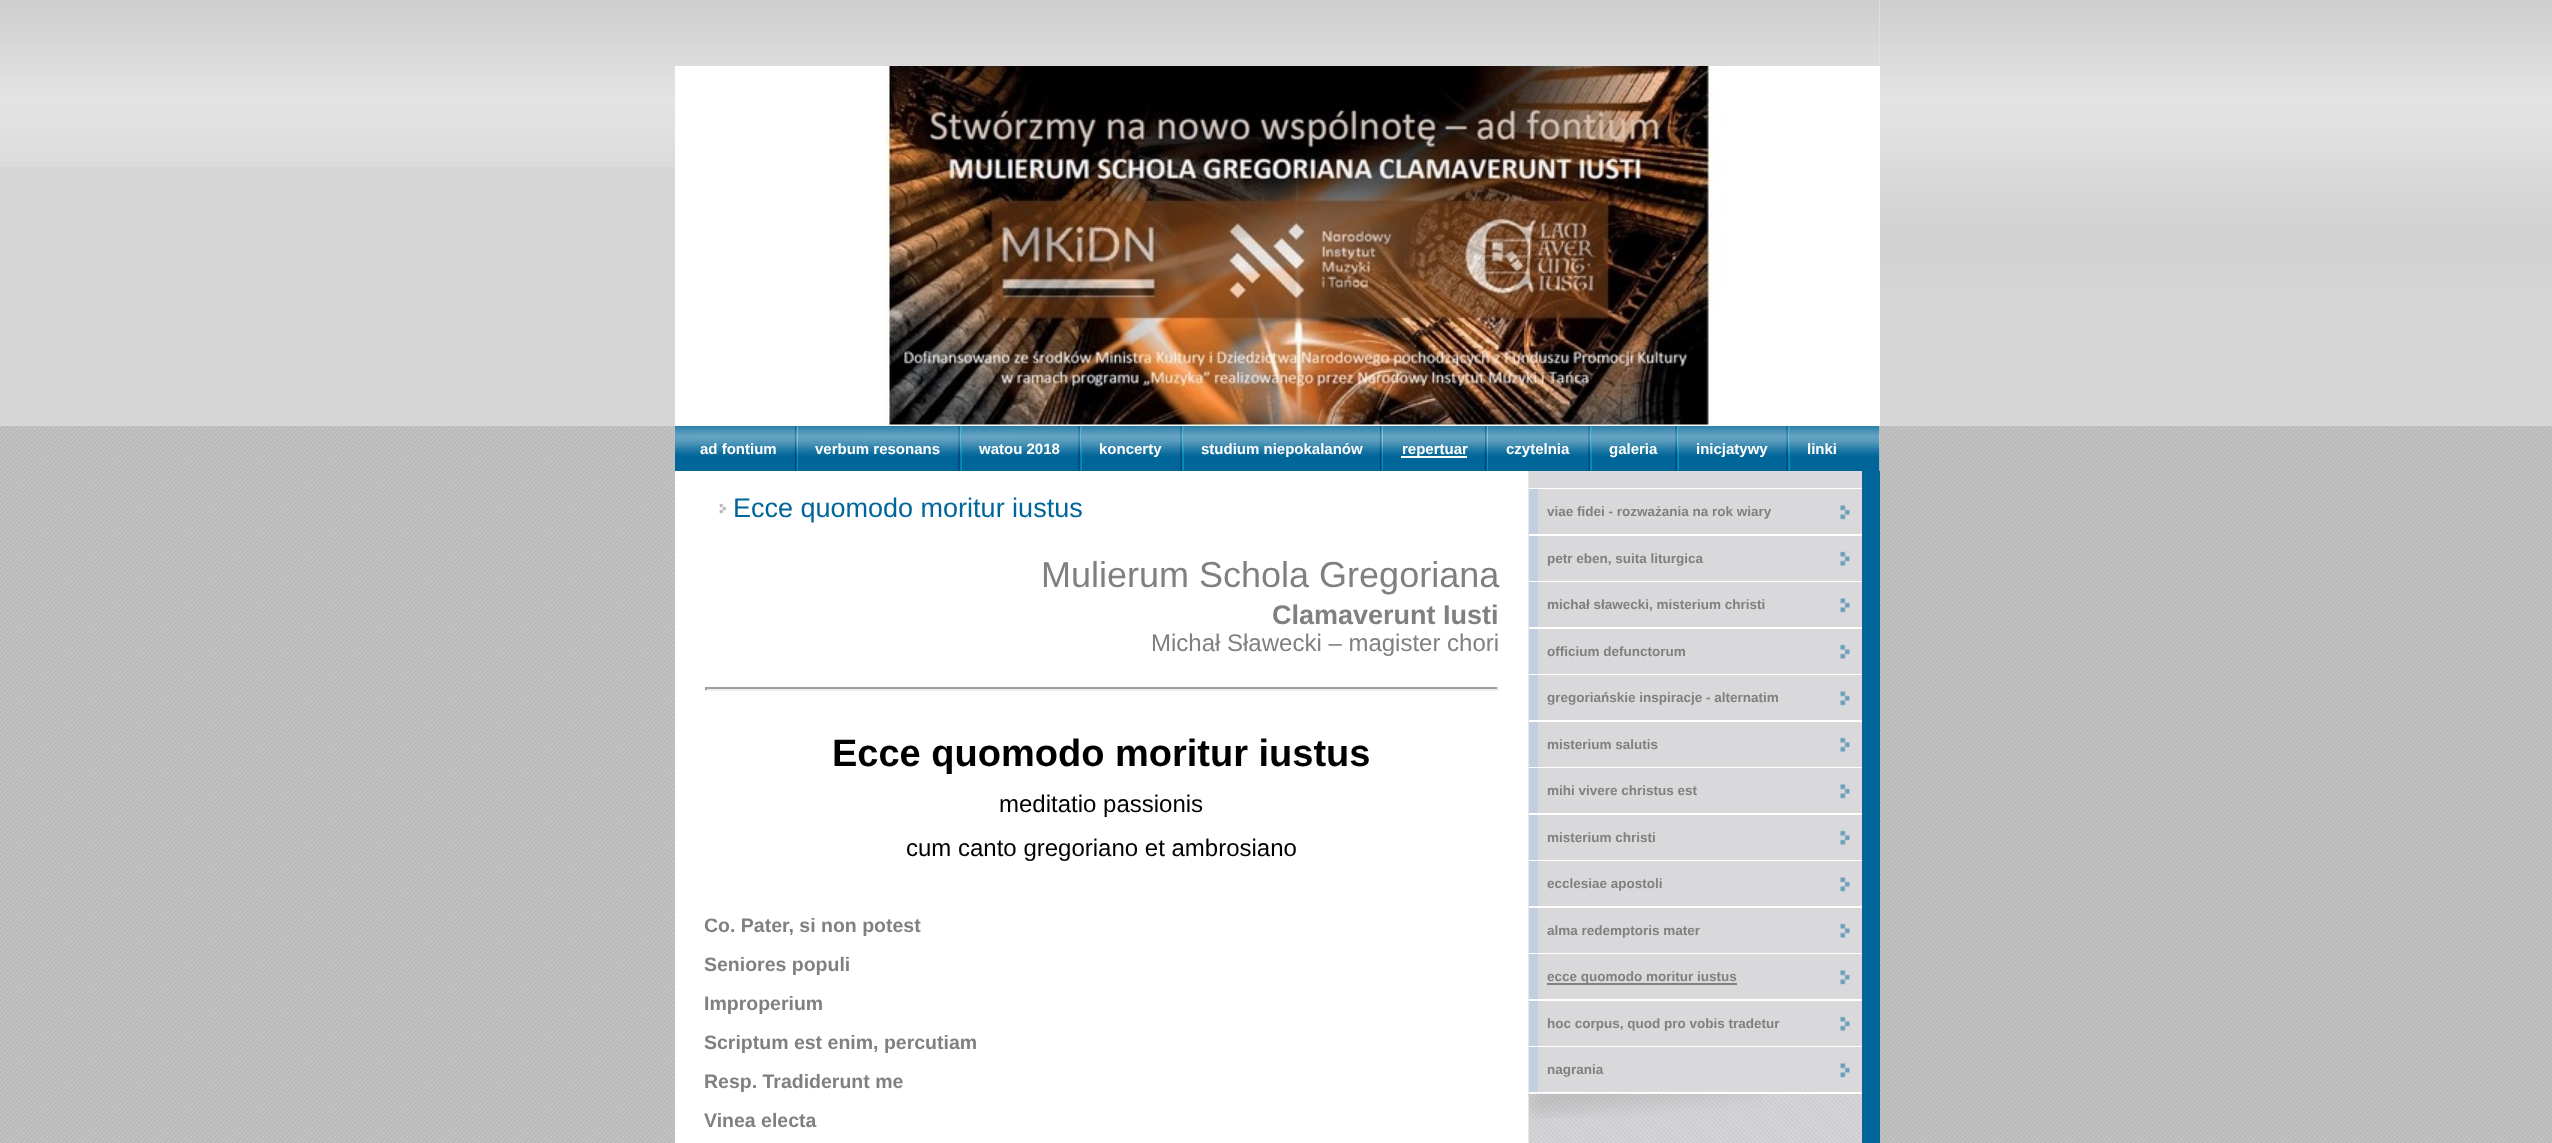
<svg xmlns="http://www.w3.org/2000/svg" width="2552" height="1143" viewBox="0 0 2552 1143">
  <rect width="100%" height="100%" fill="#ffffff"/>
  <rect x="0" y="167" width="675" height="259" fill="#d6d6d6"/>
  <image x="0" y="0" width="675" height="167" href="img1.png"/>
  <image x="675" y="0" width="1205" height="66" href="img2.png"/>
  <rect x="1880" y="309" width="672" height="117" fill="#d6d6d6"/>
  <image x="1879" y="0" width="673" height="309" href="img3.png"/>
  <rect x="1879" y="66" width="1" height="243" fill="#ffffff"/>
  <image x="884" y="66" width="840" height="360" href="img4.png"/>
  <image x="0" y="426" width="675" height="717" href="img5.png"/>
  <image x="675" y="426" width="1205" height="45" href="img6.png"/>
  <text x="700" y="454" font-family="Liberation Sans" font-size="15" font-weight="bold" fill="#ffffff">ad fontium</text>
  <image x="795" y="426" width="3" height="45" href="img7.png"/>
  <text x="815" y="454" font-family="Liberation Sans" font-size="15" font-weight="bold" fill="#ffffff">verbum resonans</text>
  <rect x="961" y="426" width="1" height="45" fill="#008fc2"/>
  <image x="958" y="426" width="4" height="45" href="img8.png"/>
  <text x="979" y="454" font-family="Liberation Sans" font-size="15" font-weight="bold" fill="#ffffff">watou 2018</text>
  <rect x="1081" y="426" width="1" height="45" fill="#008fc2"/>
  <image x="1078" y="426" width="4" height="45" href="img8.png"/>
  <text x="1099" y="454" font-family="Liberation Sans" font-size="15" font-weight="bold" fill="#ffffff">koncerty</text>
  <rect x="1183" y="426" width="1" height="45" fill="#008fc2"/>
  <image x="1180" y="426" width="4" height="45" href="img8.png"/>
  <text x="1201" y="454" font-family="Liberation Sans" font-size="15" font-weight="bold" fill="#ffffff">studium niepokalanów</text>
  <image x="1380" y="426" width="3" height="45" href="img7.png"/>
  <rect x="1401" y="456" width="66" height="2" fill="#ffffff"/>
  <text x="1402" y="454" font-family="Liberation Sans" font-size="15" font-weight="bold" fill="#ffffff">repertuar</text>
  <image x="1485" y="426" width="3" height="45" href="img9.png"/>
  <text x="1506" y="454" font-family="Liberation Sans" font-size="15" font-weight="bold" fill="#ffffff">czytelnia</text>
  <rect x="1591" y="426" width="1" height="45" fill="#008fc2"/>
  <image x="1588" y="426" width="4" height="45" href="img8.png"/>
  <text x="1609" y="454" font-family="Liberation Sans" font-size="15" font-weight="bold" fill="#ffffff">galeria</text>
  <rect x="1678" y="426" width="1" height="45" fill="#008fc2"/>
  <image x="1675" y="426" width="4" height="45" href="img8.png"/>
  <text x="1696" y="454" font-family="Liberation Sans" font-size="15" font-weight="bold" fill="#ffffff">inicjatywy</text>
  <rect x="1789" y="426" width="1" height="45" fill="#008fc2"/>
  <image x="1786" y="426" width="4" height="45" href="img10.png"/>
  <text x="1807" y="454" font-family="Liberation Sans" font-size="15" font-weight="bold" fill="#ffffff">linki</text>
  <image x="1879" y="426" width="673" height="717" href="img11.png"/>
  <image x="719" y="503" width="8" height="11" href="img12.png"/>
  <text x="733" y="517" font-family="Liberation Sans" font-size="27" fill="#006699">Ecce quomodo moritur iustus</text>
  <text x="1041" y="587" font-family="Liberation Sans" font-size="36" fill="#808080">Mulierum Schola Gregoriana</text>
  <text x="1272" y="624" font-family="Liberation Sans" font-size="27" font-weight="bold" fill="#808080">Clamaverunt Iusti</text>
  <text x="1151" y="651" font-family="Liberation Sans" font-size="24" fill="#808080">Michał Sławecki – magister chori</text>
  <rect x="705" y="687" width="794" height="2" fill="#9f9f9f"/>
  <rect x="1497" y="687" width="2" height="3" fill="#eeeeee"/>
  <rect x="705" y="689" width="794" height="2" fill="#eeeeee"/>
  <rect x="705" y="687" width="2" height="3" fill="#9f9f9f"/>
  <text x="832" y="766" font-family="Liberation Sans" font-size="38" font-weight="bold" fill="#000000">Ecce quomodo moritur iustus</text>
  <text x="999" y="812" font-family="Liberation Sans" font-size="24" fill="#000000">meditatio passionis</text>
  <text x="906" y="856" font-family="Liberation Sans" font-size="24" fill="#000000">cum canto gregoriano et ambrosiano</text>
  <text x="704" y="932" font-family="Liberation Sans" font-size="19.5" font-weight="bold" fill="#808080">Co. Pater, si non potest</text>
  <text x="704" y="971" font-family="Liberation Sans" font-size="19.5" font-weight="bold" fill="#808080">Seniores populi</text>
  <text x="704" y="1010" font-family="Liberation Sans" font-size="19.5" font-weight="bold" fill="#808080">Improperium</text>
  <text x="704" y="1049" font-family="Liberation Sans" font-size="19.5" font-weight="bold" fill="#808080">Scriptum est enim, percutiam</text>
  <text x="704" y="1088" font-family="Liberation Sans" font-size="19.5" font-weight="bold" fill="#808080">Resp. Tradiderunt me</text>
  <text x="704" y="1127" font-family="Liberation Sans" font-size="19.5" font-weight="bold" fill="#808080">Vinea electa</text>
  <rect x="1861" y="1094" width="1" height="49" fill="#d9d9db"/>
  <image x="1528" y="471" width="334" height="672" href="img13.png"/>
  <rect x="1529" y="471" width="333" height="17" fill="#d9d9db"/>
  <rect x="1529" y="488" width="333" height="1" fill="#ffffff"/>
  <rect x="1538" y="489" width="324" height="45" fill="#d9d9db"/>
  <rect x="1529" y="489" width="9" height="45" fill="#c2cfe0"/>
  <text x="1547" y="516" font-family="Liberation Sans" font-size="13.5" font-weight="bold" fill="#808080">viae fidei - rozważania na rok wiary</text>
  <image x="1840" y="505" width="10" height="15" href="img14.png"/>
  <rect x="1529" y="534" width="333" height="2" fill="#ffffff"/>
  <rect x="1538" y="536" width="324" height="45" fill="#d9d9db"/>
  <rect x="1529" y="536" width="9" height="45" fill="#c2cfe0"/>
  <text x="1547" y="563" font-family="Liberation Sans" font-size="13.5" font-weight="bold" fill="#808080">petr eben, suita liturgica</text>
  <image x="1840" y="551" width="10" height="15" href="img15.png"/>
  <rect x="1529" y="581" width="333" height="1" fill="#ffffff"/>
  <rect x="1538" y="582" width="324" height="45" fill="#d9d9db"/>
  <rect x="1529" y="582" width="9" height="45" fill="#c2cfe0"/>
  <text x="1547" y="609" font-family="Liberation Sans" font-size="13.5" font-weight="bold" fill="#808080">michał sławecki, misterium christi</text>
  <image x="1840" y="598" width="10" height="15" href="img14.png"/>
  <rect x="1529" y="627" width="333" height="2" fill="#ffffff"/>
  <rect x="1538" y="629" width="324" height="45" fill="#d9d9db"/>
  <rect x="1529" y="629" width="9" height="45" fill="#c2cfe0"/>
  <text x="1547" y="656" font-family="Liberation Sans" font-size="13.5" font-weight="bold" fill="#808080">officium defunctorum</text>
  <image x="1840" y="644" width="10" height="15" href="img15.png"/>
  <rect x="1529" y="674" width="333" height="1" fill="#ffffff"/>
  <rect x="1538" y="675" width="324" height="45" fill="#d9d9db"/>
  <rect x="1529" y="675" width="9" height="45" fill="#c2cfe0"/>
  <text x="1547" y="702" font-family="Liberation Sans" font-size="13.5" font-weight="bold" fill="#808080">gregoriańskie inspiracje - alternatim</text>
  <image x="1840" y="691" width="10" height="15" href="img14.png"/>
  <rect x="1529" y="720" width="333" height="2" fill="#ffffff"/>
  <rect x="1538" y="722" width="324" height="45" fill="#d9d9db"/>
  <rect x="1529" y="722" width="9" height="45" fill="#c2cfe0"/>
  <text x="1547" y="749" font-family="Liberation Sans" font-size="13.5" font-weight="bold" fill="#808080">misterium salutis</text>
  <image x="1840" y="737" width="10" height="15" href="img15.png"/>
  <rect x="1529" y="767" width="333" height="1" fill="#ffffff"/>
  <rect x="1538" y="768" width="324" height="45" fill="#d9d9db"/>
  <rect x="1529" y="768" width="9" height="45" fill="#c2cfe0"/>
  <text x="1547" y="795" font-family="Liberation Sans" font-size="13.5" font-weight="bold" fill="#808080">mihi vivere christus est</text>
  <image x="1840" y="784" width="10" height="15" href="img14.png"/>
  <rect x="1529" y="813" width="333" height="2" fill="#ffffff"/>
  <rect x="1538" y="815" width="324" height="45" fill="#d9d9db"/>
  <rect x="1529" y="815" width="9" height="45" fill="#c2cfe0"/>
  <text x="1547" y="842" font-family="Liberation Sans" font-size="13.5" font-weight="bold" fill="#808080">misterium christi</text>
  <image x="1840" y="830" width="10" height="15" href="img15.png"/>
  <rect x="1529" y="860" width="333" height="1" fill="#ffffff"/>
  <rect x="1538" y="861" width="324" height="45" fill="#d9d9db"/>
  <rect x="1529" y="861" width="9" height="45" fill="#c2cfe0"/>
  <text x="1547" y="888" font-family="Liberation Sans" font-size="13.5" font-weight="bold" fill="#808080">ecclesiae apostoli</text>
  <image x="1840" y="877" width="10" height="15" href="img14.png"/>
  <rect x="1529" y="906" width="333" height="2" fill="#ffffff"/>
  <rect x="1538" y="908" width="324" height="45" fill="#d9d9db"/>
  <rect x="1529" y="908" width="9" height="45" fill="#c2cfe0"/>
  <text x="1547" y="935" font-family="Liberation Sans" font-size="13.5" font-weight="bold" fill="#808080">alma redemptoris mater</text>
  <image x="1840" y="923" width="10" height="15" href="img15.png"/>
  <rect x="1529" y="953" width="333" height="1" fill="#ffffff"/>
  <rect x="1538" y="954" width="324" height="45" fill="#d9d9db"/>
  <rect x="1529" y="954" width="9" height="45" fill="#c2cfe0"/>
  <rect x="1547" y="983" width="190" height="2" fill="#828283"/>
  <text x="1547" y="981" font-family="Liberation Sans" font-size="13.5" font-weight="bold" fill="#808080">ecce quomodo moritur iustus</text>
  <image x="1840" y="970" width="10" height="15" href="img14.png"/>
  <rect x="1529" y="999" width="333" height="2" fill="#ffffff"/>
  <rect x="1538" y="1001" width="324" height="45" fill="#d9d9db"/>
  <rect x="1529" y="1001" width="9" height="45" fill="#c2cfe0"/>
  <text x="1547" y="1028" font-family="Liberation Sans" font-size="13.5" font-weight="bold" fill="#808080">hoc corpus, quod pro vobis tradetur</text>
  <image x="1840" y="1016" width="10" height="15" href="img15.png"/>
  <rect x="1529" y="1046" width="333" height="1" fill="#ffffff"/>
  <rect x="1538" y="1047" width="324" height="45" fill="#d9d9db"/>
  <rect x="1529" y="1047" width="9" height="45" fill="#c2cfe0"/>
  <text x="1547" y="1074" font-family="Liberation Sans" font-size="13.5" font-weight="bold" fill="#808080">nagrania</text>
  <image x="1840" y="1063" width="10" height="15" href="img14.png"/>
  <rect x="1529" y="1092" width="333" height="2" fill="#ffffff"/>
  <image x="1528" y="1093" width="235" height="25" href="img16.png"/>
  <rect x="1862" y="471" width="18" height="672" fill="#006699"/>
</svg>
